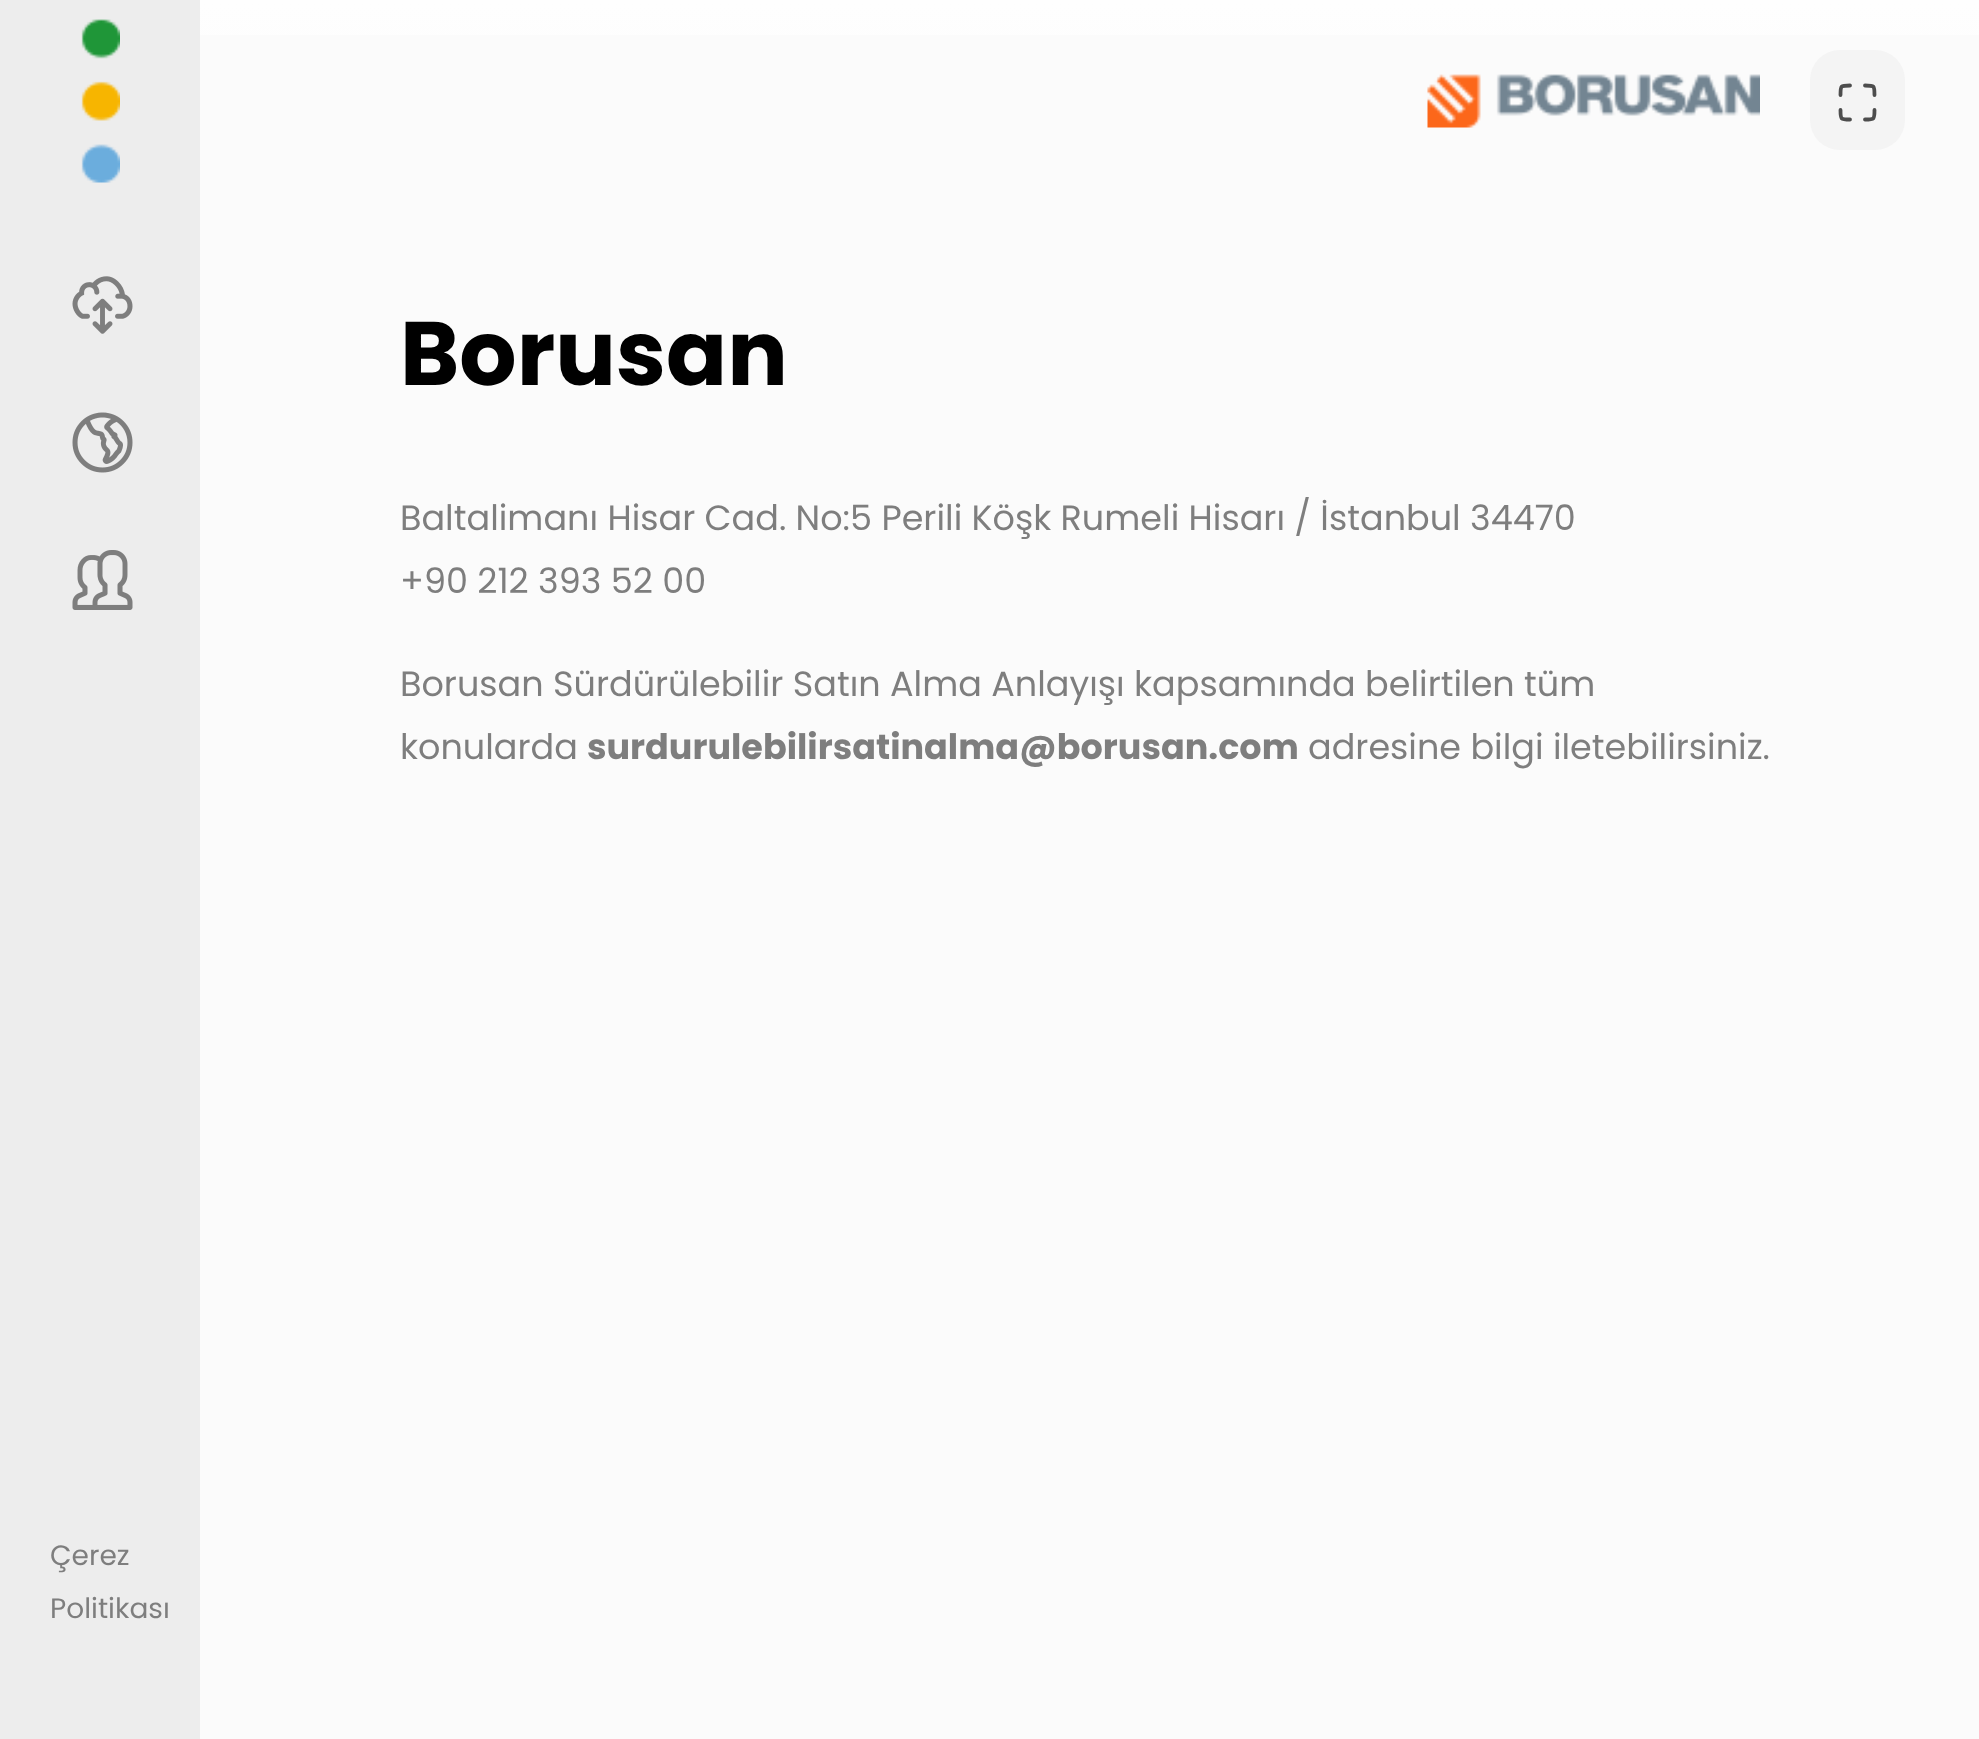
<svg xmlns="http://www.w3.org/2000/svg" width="1979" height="1739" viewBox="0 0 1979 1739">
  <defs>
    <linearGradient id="g1" gradientUnits="userSpaceOnUse" x1="990" y1="0" x2="990" y2="200"><stop offset="0.01" stop-color="#fefefe"/><stop offset="1" stop-color="#fbfbfb"/></linearGradient>
  </defs>
  <rect width="100%" height="100%" fill="#fbfbfb"/>
  <rect x="0" y="0" width="200" height="1739" fill="#ededed"/>
  <image x="81" y="19" width="39" height="164" href="img1.png"/>
  <rect x="200" y="0" width="1779" height="35" fill="url(#g1)"/>
  <image x="1427" y="74" width="333" height="54" href="img2.png"/>
  <rect x="1810" y="50" width="95" height="100" rx="30" fill="#f4f4f4"/>
  <path d="M1850 85.5C1840.5 85.5 1840.5 85.5 1840.5 95M1874.5 95C1874.5 85.5 1874.5 85.5 1865 85.5M1865 119.5C1874.5 119.5 1874.5 119.5 1874.5 110M1840.5 110C1840.5 119.5 1840.5 119.5 1850 119.5" fill="none" stroke="#4d4d4d" stroke-width="3.8" stroke-linecap="round" stroke-linejoin="round"/>
  <text x="400" y="385" font-family="Poppins" font-size="90" font-weight="bold" fill="#000000">Borusan</text>
  <text x="400" y="530" font-family="Poppins" font-size="35" fill="#7e7e7e">Baltalimanı Hisar Cad. No:5 Perili Köşk Rumeli Hisarı / İstanbul 34470</text>
  <text x="400" y="593" font-family="Poppins" font-size="35" fill="#7e7e7e">+90 212 393 52 00</text>
  <text x="400" y="696" font-family="Poppins" font-size="35" fill="#7e7e7e">Borusan Sürdürülebilir Satın Alma Anlayışı kapsamında belirtilen tüm</text>
  <text x="400" y="759" font-family="Poppins" font-size="35" fill="#7e7e7e">konularda</text>
  <text x="587" y="759" font-family="Poppins" font-size="35" font-weight="bold" fill="#7e7e7e">surdurulebilirsatinalma@borusan.com</text>
  <text x="1308" y="759" font-family="Poppins" font-size="35" fill="#7e7e7e">adresine bilgi iletebilirsiniz.</text>
  <image x="72" y="276" width="61" height="58" href="img3.png"/>
  <image x="72" y="412" width="61" height="61" href="img4.png"/>
  <image x="72" y="550" width="61" height="60" href="img5.png"/>
  <text x="50" y="1565" font-family="Poppins" font-size="28" fill="#7e7e7e">Çerez</text>
  <text x="50" y="1618" font-family="Poppins" font-size="28" fill="#7e7e7e">Politikası</text>
</svg>
